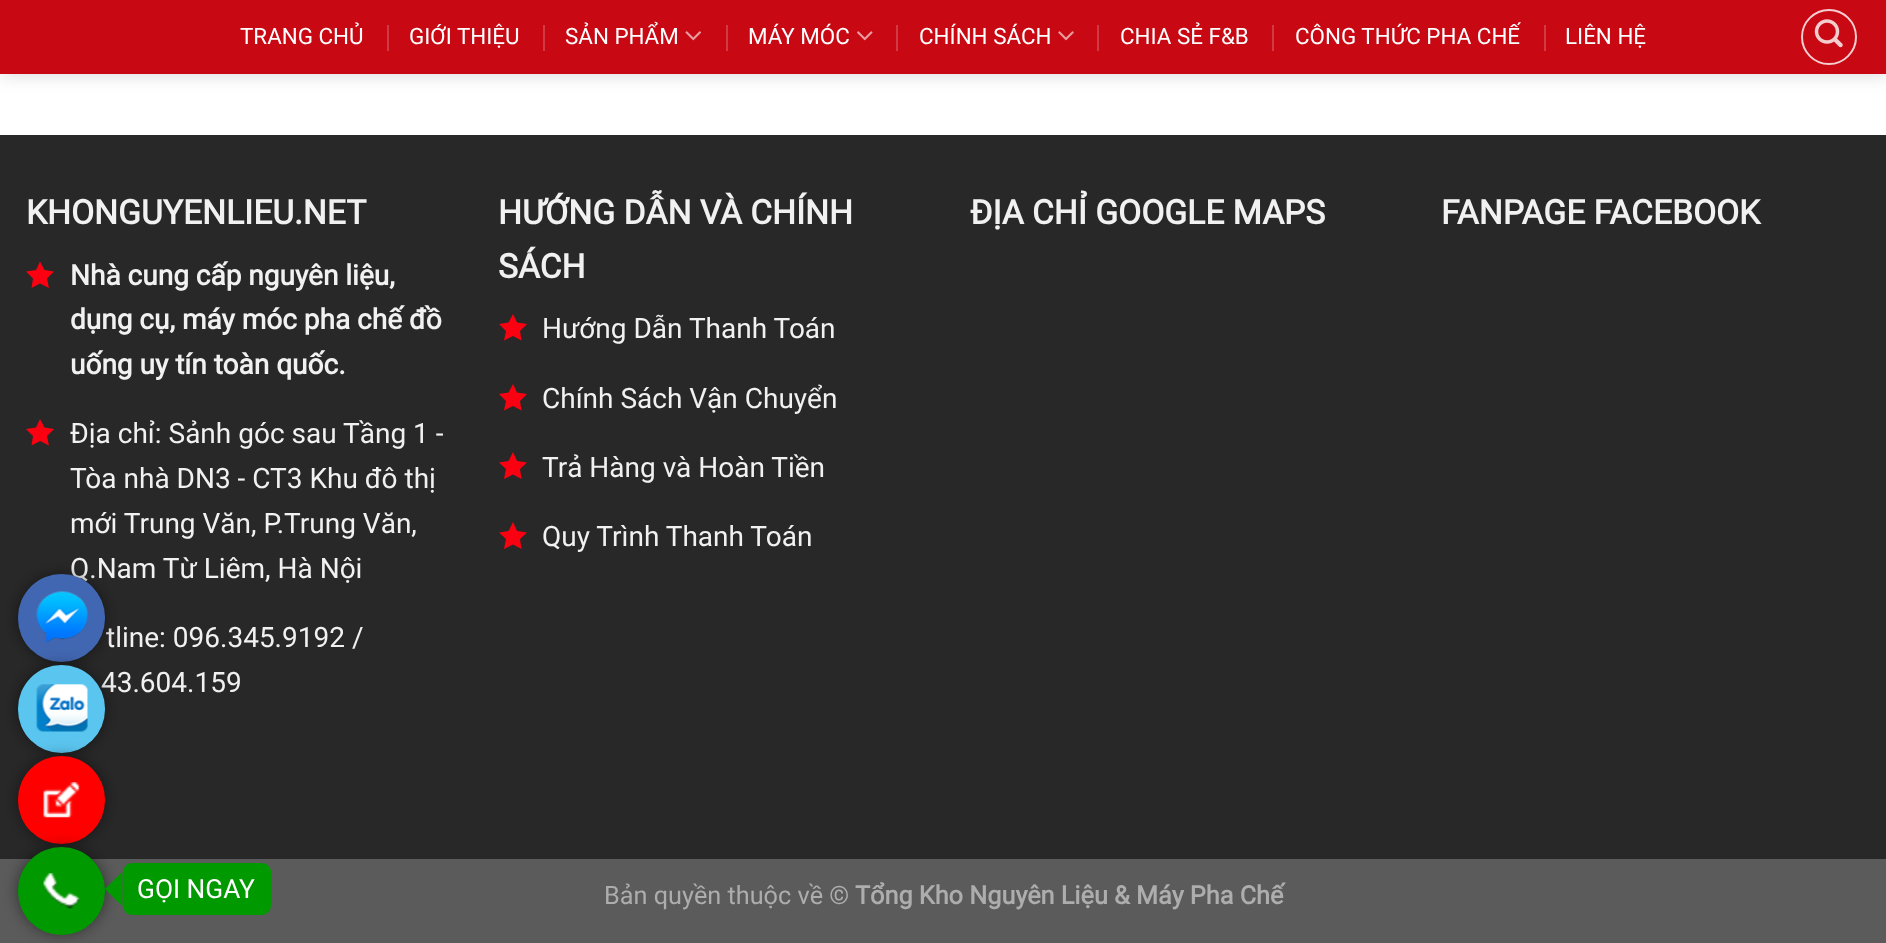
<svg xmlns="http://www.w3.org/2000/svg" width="1886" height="943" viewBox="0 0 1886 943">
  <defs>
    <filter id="blur1" x="-50%" y="-200%" width="200%" height="500%"><feGaussianBlur stdDeviation="9"/></filter>
  </defs>
  <rect width="100%" height="100%" fill="#ffffff"/>
  <rect x="2" y="2" width="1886" height="73" fill="#000000" fill-opacity="0.15" filter="url(#blur1)"/>
  <rect x="0" y="0" width="1886" height="74" fill="#c80813"/>
  <text x="240" y="44" font-family="Roboto" font-size="22.4" fill="#ffffff">TRANG CHỦ</text>
  <rect x="387" y="25" width="2" height="26" fill="#d33942"/>
  <text x="409" y="44" font-family="Roboto" font-size="22.4" fill="#ffffff">GIỚI THIỆU</text>
  <rect x="543" y="25" width="2" height="26" fill="#d33942"/>
  <text x="565" y="44" font-family="Roboto" font-size="22.4" fill="#ffffff">SẢN PHẨM</text>
  <image x="685" y="31" width="16" height="10" href="img1.png"/>
  <rect x="726" y="25" width="2" height="26" fill="#d33942"/>
  <text x="748" y="44" font-family="Roboto" font-size="22.4" fill="#ffffff">MÁY MÓC</text>
  <image x="857" y="31" width="16" height="10" href="img2.png"/>
  <rect x="896" y="25" width="2" height="26" fill="#d33942"/>
  <text x="919" y="44" font-family="Roboto" font-size="22.4" fill="#ffffff">CHÍNH SÁCH</text>
  <image x="1058" y="31" width="16" height="10" href="img3.png"/>
  <rect x="1097" y="25" width="2" height="26" fill="#d33942"/>
  <text x="1120" y="44" font-family="Roboto" font-size="22.4" fill="#ffffff">CHIA SẺ F&amp;B</text>
  <rect x="1272" y="25" width="2" height="26" fill="#d33942"/>
  <text x="1295" y="44" font-family="Roboto" font-size="22.4" fill="#ffffff">CÔNG THỨC PHA CHẾ</text>
  <rect x="1544" y="25" width="2" height="26" fill="#d33942"/>
  <text x="1565" y="44" font-family="Roboto" font-size="22.4" fill="#ffffff">LIÊN HỆ</text>
  <circle cx="1829" cy="37" r="27" fill="none" stroke="#f4ced0" stroke-width="2"/>
  <image x="1814" y="19" width="29" height="29" href="img4.png"/>
  <rect x="0" y="135" width="1886" height="724" fill="#282828"/>
  <text x="26" y="224" font-family="Roboto" font-size="33.6" font-weight="bold" fill="#f1f1f1">KHONGUYENLIEU.NET</text>
  <path d="M54 271.5L44.5 270L40 261.5L36 270L26 271.5L33 278.5L31.5 288L40 283.5L49 288L47 278.5Z" fill="#fb0010"/>
  <text x="70" y="285" font-family="Roboto" font-size="28" font-weight="bold" fill="#f1f1f1">Nhà cung cấp nguyên liệu,</text>
  <text x="70" y="329" font-family="Roboto" font-size="28" font-weight="bold" fill="#f1f1f1">dụng cụ, máy móc pha chế đồ</text>
  <text x="70" y="374" font-family="Roboto" font-size="28" font-weight="bold" fill="#f1f1f1">uống uy tín toàn quốc.</text>
  <path d="M54 429L44.5 427.5L40 419L36 427.5L26 429L33 436L31.5 445.5L40 441L49 445.5L47 436Z" fill="#fb0010"/>
  <text x="70" y="443" font-family="Roboto" font-size="28" fill="#f1f1f1">Địa chỉ: Sảnh góc sau Tầng 1 -</text>
  <text x="70" y="488" font-family="Roboto" font-size="28" fill="#f1f1f1">Tòa nhà DN3 - CT3 Khu đô thị</text>
  <text x="70" y="533" font-family="Roboto" font-size="28" fill="#f1f1f1">mới Trung Văn, P.Trung Văn,</text>
  <text x="70" y="578" font-family="Roboto" font-size="28" fill="#f1f1f1">Q.Nam Từ Liêm, Hà Nội</text>
  <text x="106" y="647" font-family="Roboto" font-size="28" fill="#f1f1f1">tline: 096.345.9192 /</text>
  <text x="101" y="692" font-family="Roboto" font-size="28" fill="#f1f1f1">43.604.159</text>
  <text x="498" y="224" font-family="Roboto" font-size="33.6" font-weight="bold" fill="#f1f1f1">HƯỚNG DẪN VÀ CHÍNH</text>
  <text x="498" y="278" font-family="Roboto" font-size="33.6" font-weight="bold" fill="#f1f1f1">SÁCH</text>
  <path d="M527 324L517 322.5L513 314L508.5 322.5L499 324L506 331L504 340.5L513 336L521.5 340.5L520 331Z" fill="#fb0010"/>
  <text x="542" y="338" font-family="Roboto" font-size="28" fill="#f1f1f1">Hướng Dẫn Thanh Toán</text>
  <path d="M527 394L517 392.5L513 384L508.5 392.5L499 394L506 401L504 410.5L513 406L521.5 410.5L520 401Z" fill="#fb0010"/>
  <text x="542" y="408" font-family="Roboto" font-size="28" fill="#f1f1f1">Chính Sách Vận Chuyển</text>
  <path d="M527 462.5L517 461L513 452L508.5 461L499 462.5L506 469L504 479L513 474.5L521.5 479L520 469Z" fill="#fb0010"/>
  <text x="542" y="477" font-family="Roboto" font-size="28" fill="#f1f1f1">Trả Hàng và Hoàn Tiền</text>
  <path d="M527 532.5L517 531L513 522L508.5 531L499 532.5L506 539L504 549L513 544.5L521.5 549L520 539Z" fill="#fb0010"/>
  <text x="542" y="546" font-family="Roboto" font-size="28" fill="#f1f1f1">Quy Trình Thanh Toán</text>
  <text x="970" y="224" font-family="Roboto" font-size="33.6" font-weight="bold" fill="#f1f1f1">ĐỊA CHỈ GOOGLE MAPS</text>
  <text x="1441" y="224" font-family="Roboto" font-size="33.6" font-weight="bold" fill="#f1f1f1">FANPAGE FACEBOOK</text>
  <rect x="0" y="859" width="1886" height="84" fill="#5b5b5b"/>
  <text x="604" y="904" font-family="Roboto" font-size="25.25" fill="#adadad">Bản quyền thuộc về ©</text>
  <text x="855" y="904" font-family="Roboto" font-size="25.25" font-weight="bold" fill="#adadad">Tổng Kho Nguyên Liệu &amp; Máy Pha Chế</text>
  <rect x="21" y="578" width="81" height="80" rx="40" fill="#000000" fill-opacity="0.7" filter="url(#blur1)"/>
  <rect x="18" y="574" width="87" height="88" rx="43.5" fill="#4267b2"/>
  <rect x="21" y="669" width="81" height="80" rx="40" fill="#000000" fill-opacity="0.7" filter="url(#blur1)"/>
  <image x="36" y="591" width="52" height="52" href="img5.png"/>
  <rect x="18" y="665" width="87" height="88" rx="43.5" fill="#5ac5ef"/>
  <image x="36" y="684" width="52" height="48" href="img6.png"/>
  <rect x="21" y="760" width="81" height="80" rx="40" fill="#000000" fill-opacity="0.7" filter="url(#blur1)"/>
  <rect x="18" y="756" width="87" height="88" rx="43.5" fill="#ff0000"/>
  <image x="43" y="782" width="37" height="36" href="img7.png"/>
  <rect x="21" y="851" width="81" height="80" rx="40" fill="#000000" fill-opacity="0.7" filter="url(#blur1)"/>
  <rect x="18" y="847" width="87" height="88" rx="43.5" fill="#009900"/>
  <image x="43" y="873" width="37" height="36" href="img8.png"/>
  <rect x="123" y="863" width="148" height="52" rx="9" fill="#009900"/>
  <path d="M122.5 871.5V906.5L105 889Z" fill="#009900"/>
  <text x="137" y="898" font-family="Roboto" font-size="26.25" fill="#ffffff">GỌI NGAY</text>
</svg>
